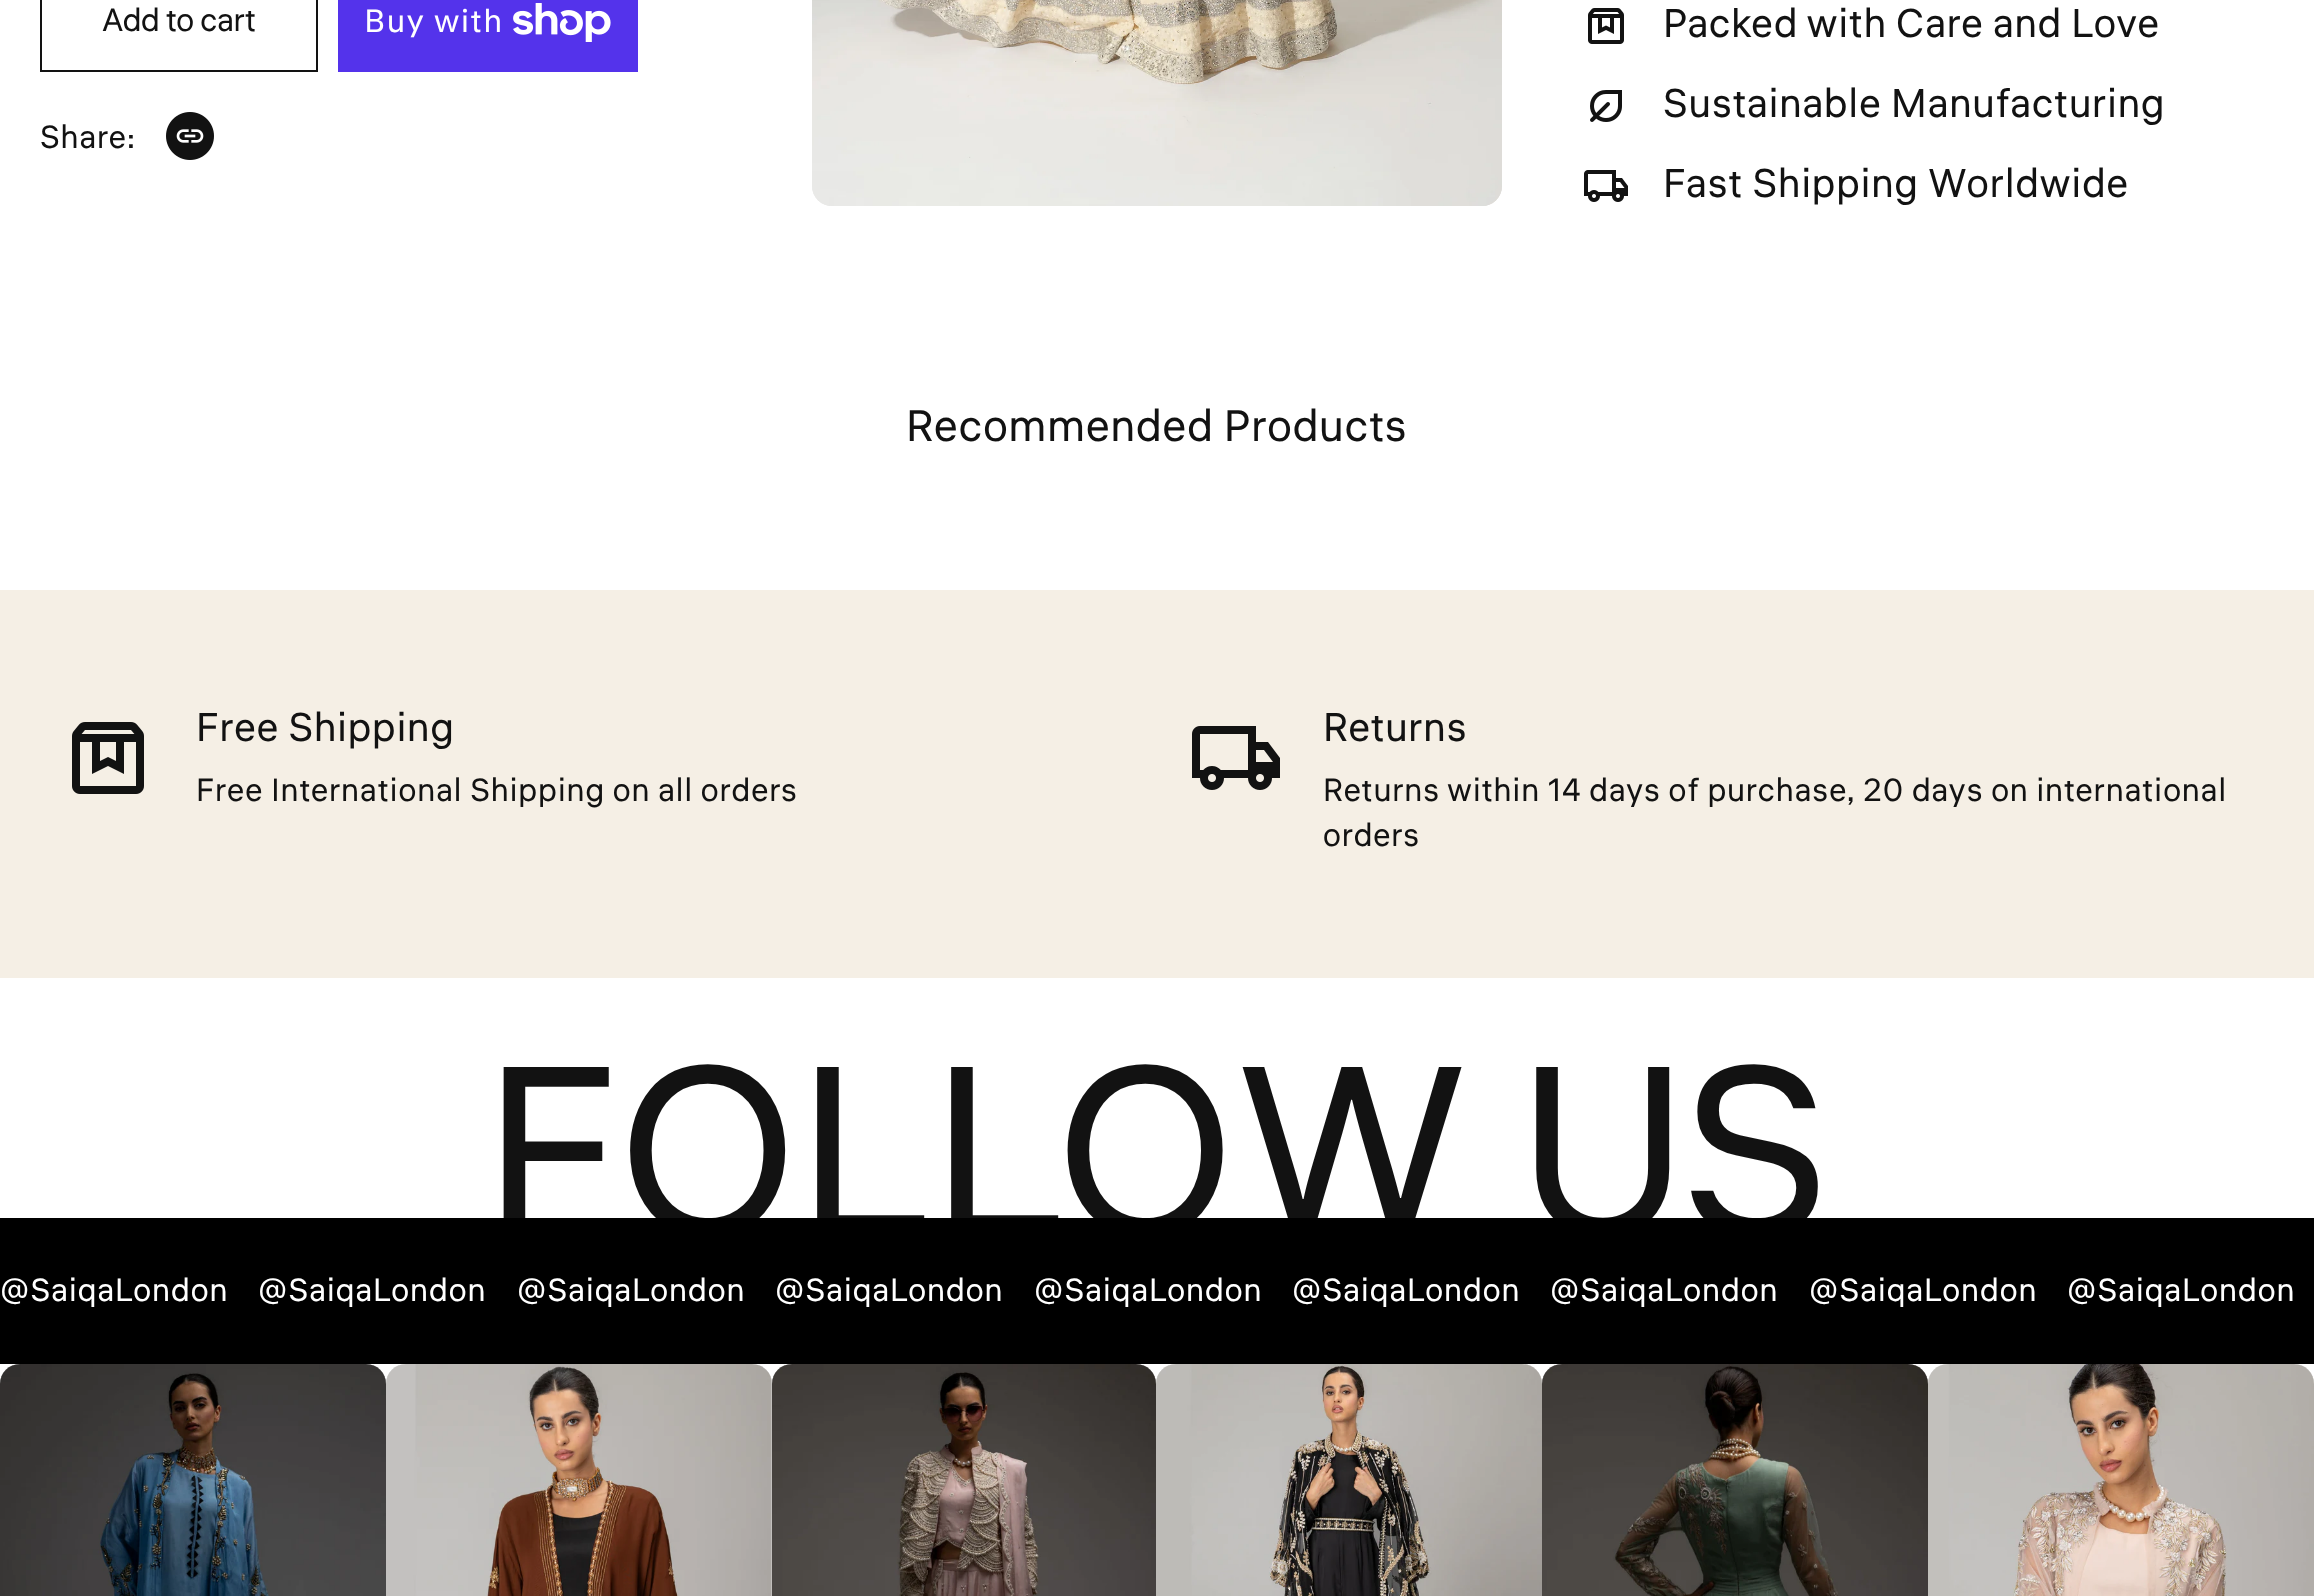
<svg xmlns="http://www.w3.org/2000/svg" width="2314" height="1596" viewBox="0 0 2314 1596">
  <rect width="100%" height="100%" fill="#ffffff"/>
  <rect x="41" y="-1" width="276" height="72" fill="none" stroke="#121212" stroke-width="2"/>
  <text x="102" y="31" font-family="Liter" font-size="32" fill="#121212">Add to cart</text>
  <rect x="338" y="0" width="300" height="72" fill="#5433eb"/>
  <text x="364" y="32" font-family="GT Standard" font-size="32" letter-spacing="1.2" fill="#ffffff">Buy with</text>
  <image x="513" y="3" width="98" height="39" href="img1.png"/>
  <text x="40" y="148" font-family="Liter" font-size="32" letter-spacing="1.2" fill="#121212">Share:</text>
  <image x="166" y="112" width="48" height="48" href="img2.png"/>
  <image x="812" y="186" width="690" height="20" href="img3.png"/>
  <image x="812" y="0" width="690" height="206" href="img4.png"/>
  <image x="1588" y="8" width="36" height="36" href="img5.png"/>
  <text x="1663" y="37" font-family="Liter" font-size="40" letter-spacing="1.2" fill="#121212">Packed with Care and Love</text>
  <image x="1590" y="90" width="32" height="32" href="img6.png"/>
  <text x="1663" y="117" font-family="Liter" font-size="40" letter-spacing="1.2" fill="#121212">Sustainable Manufacturing</text>
  <image x="1584" y="170" width="44" height="32" href="img7.png"/>
  <text x="1663" y="197" font-family="Liter" font-size="40" letter-spacing="1.2" fill="#121212">Fast Shipping Worldwide</text>
  <text x="906" y="441" font-family="Liter" font-size="44" letter-spacing="1.2" fill="#121212">Recommended Products</text>
  <rect x="0" y="590" width="2314" height="388" fill="#f5efe5"/>
  <image x="72" y="722" width="72" height="72" href="img8.png"/>
  <text x="196" y="741" font-family="Liter" font-size="40" letter-spacing="1.2" fill="#121212">Free Shipping</text>
  <text x="196" y="801" font-family="Liter" font-size="32" letter-spacing="1.2" fill="#121212">Free International Shipping on all orders</text>
  <image x="1192" y="726" width="88" height="64" href="img9.png"/>
  <text x="1323" y="741" font-family="Liter" font-size="40" letter-spacing="1.2" fill="#121212">Returns</text>
  <text x="1323" y="801" font-family="Liter" font-size="32" letter-spacing="1.2" fill="#121212">Returns within 14 days of purchase, 20 days on international</text>
  <text x="1323" y="846" font-family="Liter" font-size="32" letter-spacing="1.2" fill="#121212">orders</text>
  <text x="483" y="1235" font-family="Liter" font-size="240" letter-spacing="1.2" fill="#121212">FOLLOW US</text>
  <rect x="0" y="1218" width="2314" height="146" fill="#000000"/>
  <text x="0" y="1301" font-family="Liter" font-size="32" letter-spacing="1.2" fill="#ffffff">@SaiqaLondon</text>
  <text x="258" y="1301" font-family="Liter" font-size="32" letter-spacing="1.2" fill="#ffffff">@SaiqaLondon</text>
  <text x="517" y="1301" font-family="Liter" font-size="32" letter-spacing="1.2" fill="#ffffff">@SaiqaLondon</text>
  <text x="775" y="1301" font-family="Liter" font-size="32" letter-spacing="1.2" fill="#ffffff">@SaiqaLondon</text>
  <text x="1034" y="1301" font-family="Liter" font-size="32" letter-spacing="1.2" fill="#ffffff">@SaiqaLondon</text>
  <text x="1292" y="1301" font-family="Liter" font-size="32" letter-spacing="1.2" fill="#ffffff">@SaiqaLondon</text>
  <text x="1550" y="1301" font-family="Liter" font-size="32" letter-spacing="1.2" fill="#ffffff">@SaiqaLondon</text>
  <text x="1809" y="1301" font-family="Liter" font-size="32" letter-spacing="1.2" fill="#ffffff">@SaiqaLondon</text>
  <text x="2067" y="1301" font-family="Liter" font-size="32" letter-spacing="1.2" fill="#ffffff">@SaiqaLondon</text>
  <image x="0" y="1364" width="386" height="20" href="img10.png"/>
  <rect x="0" y="1364" width="386" height="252" rx="20" fill="#ffffff"/>
  <image x="0" y="1364" width="386" height="232" href="img11.png"/>
  <image x="386" y="1364" width="386" height="20" href="img12.png"/>
  <rect x="386" y="1364" width="386" height="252" rx="20" fill="#ffffff"/>
  <image x="386" y="1364" width="386" height="232" href="img13.png"/>
  <image x="772" y="1364" width="384" height="20" href="img14.png"/>
  <rect x="772" y="1364" width="384" height="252" rx="20" fill="#ffffff"/>
  <image x="772" y="1364" width="384" height="232" href="img15.png"/>
  <image x="1156" y="1364" width="386" height="20" href="img16.png"/>
  <rect x="1156" y="1364" width="386" height="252" rx="20" fill="#ffffff"/>
  <image x="1156" y="1364" width="386" height="232" href="img17.png"/>
  <image x="1542" y="1364" width="386" height="20" href="img18.png"/>
  <rect x="1542" y="1364" width="386" height="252" rx="20" fill="#ffffff"/>
  <image x="1542" y="1364" width="386" height="232" href="img19.png"/>
  <image x="1928" y="1364" width="386" height="20" href="img20.png"/>
  <rect x="1928" y="1364" width="386" height="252" rx="20" fill="#ffffff"/>
  <image x="1928" y="1364" width="386" height="232" href="img21.png"/>
</svg>
